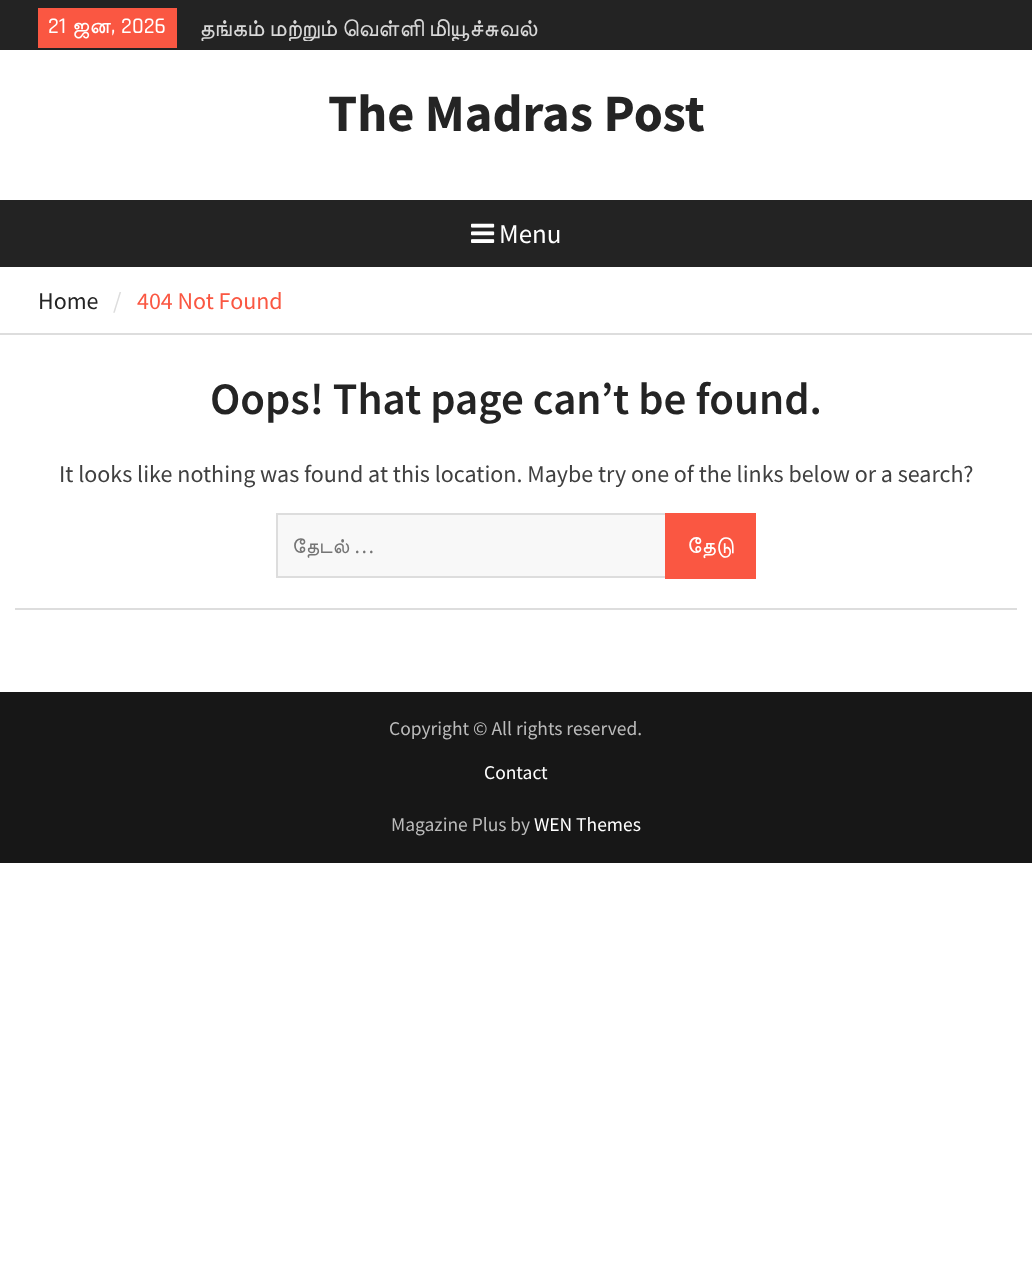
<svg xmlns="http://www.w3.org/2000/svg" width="1032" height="1265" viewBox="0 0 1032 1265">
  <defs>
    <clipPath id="clip1"><rect x="200" y="9" width="397" height="32"/></clipPath>
  </defs>
  <rect width="100%" height="100%" fill="#ffffff"/>
  <rect x="0" y="0" width="1032" height="50" fill="#232323"/>
  <rect x="38" y="8" width="139" height="40" fill="#fa5742"/>
  <text x="48" y="33" font-family="Rajdhani" font-size="22.5" font-weight="500" fill="#ffffff">21</text>
  <text x="72" y="33" font-family="FreeSans" font-size="22.5" fill="#ffffff">ஜன</text>
  <text x="111" y="33" font-family="Rajdhani" font-size="22.5" font-weight="500" fill="#ffffff">, 2026</text>
  <g clip-path="url(#clip1)">
    <text x="199" y="36" word-spacing="-1" font-family="FreeSans" font-size="24" fill="#d7d7d7">தங்கம் மற்றும் வெள்ளி மியூச்சுவல்</text>
  </g>
  <text x="328" y="131" font-family="Source Sans Pro" font-size="52.5" font-weight="bold" fill="#242424">The Madras Post</text>
  <rect x="0" y="200" width="1032" height="67" fill="#232323"/>
  <image x="471" y="223" width="24" height="20" href="img1.png"/>
  <text x="499" y="243" font-family="Source Sans Pro" font-size="27" fill="#ffffff">Menu</text>
  <rect x="0" y="333" width="1032" height="2" fill="#dddddd"/>
  <text x="38" y="309" font-family="Source Sans Pro" font-size="24" fill="#242424">Home</text>
  <text x="113" y="309" font-family="Source Sans Pro" font-size="24" fill="#dddddd">/</text>
  <text x="137" y="309" font-family="Source Sans Pro" font-size="24" fill="#fa5742">404 Not Found</text>
  <rect x="15" y="608" width="1002" height="2" fill="#dddddd"/>
  <text x="210" y="414" font-family="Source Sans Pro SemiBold" font-size="45" font-weight="600" fill="#242424">Oops! That page can’t be found.</text>
  <text x="59" y="482" font-family="Source Sans Pro" font-size="24" fill="#404040">It looks like nothing was found at this location. Maybe try one of the links below or a search?</text>
  <rect x="278" y="515" width="387" height="61" fill="#f8f8f8"/>
  <rect x="277" y="514" width="478" height="63" fill="none" stroke="#dddddd" stroke-width="2"/>
  <text x="292" y="553" font-family="FreeSans" font-size="21" fill="#757575">தேடல்</text>
  <text x="354" y="553" font-family="Source Sans Pro" font-size="21" fill="#757575">…</text>
  <rect x="665" y="513" width="91" height="66" fill="#fa5742"/>
  <text x="687" y="553" font-family="FreeSans" font-size="22.5" fill="#ffffff">தேடு</text>
  <rect x="0" y="692" width="1032" height="171" fill="#171717"/>
  <text x="389" y="735" font-family="Source Sans Pro" font-size="19.5" fill="#bbbbbb">Copyright © All rights reserved.</text>
  <text x="484" y="779" font-family="Source Sans Pro" font-size="19.5" fill="#ffffff">Contact</text>
  <text x="391" y="831" font-family="Source Sans Pro" font-size="19.5" fill="#bbbbbb">Magazine Plus by</text>
  <text x="534" y="831" font-family="Source Sans Pro" font-size="19.5" fill="#ffffff">WEN Themes</text>
</svg>
